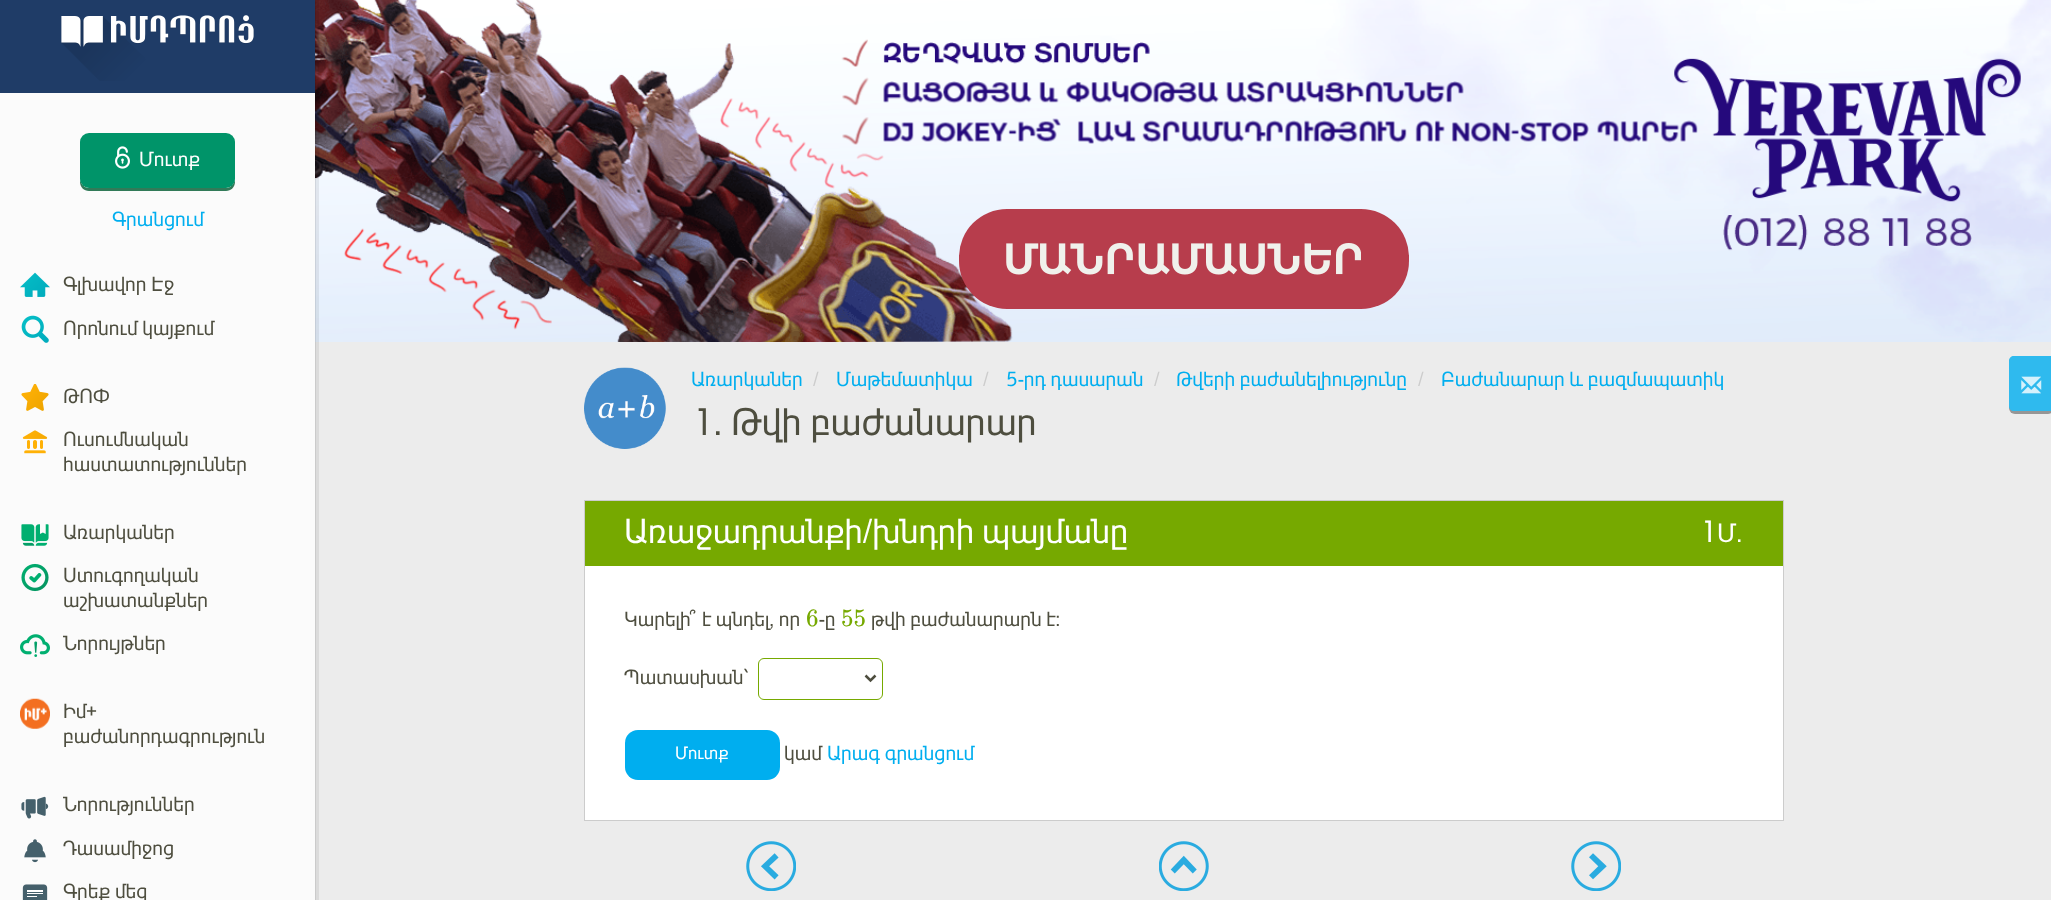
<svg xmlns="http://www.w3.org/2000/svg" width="2051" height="900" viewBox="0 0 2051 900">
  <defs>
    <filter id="blur1" x="-50%" y="-200%" width="200%" height="500%"><feGaussianBlur stdDeviation="0.5"/></filter>
  </defs>
  <rect width="100%" height="100%" fill="#ececec"/>
  <image x="315" y="0" width="1736" height="342" href="img14.png"/>
  <image x="842" y="77" width="27" height="29" href="img20.png"/>
  <image x="883" y="81" width="581" height="23" href="img21.png"/>
  <image x="842" y="117" width="27" height="28" href="img22.png"/>
  <image x="883" y="118" width="815" height="26" href="img23.png"/>
  <image x="720" y="98" width="164" height="91" href="img16.png"/>
  <image x="344" y="228" width="208" height="102" href="img17.png"/>
  <image x="841" y="39" width="27" height="28" href="img18.png"/>
  <image x="883" y="42" width="267" height="23" href="img19.png"/>
  <image x="315" y="0" width="698" height="342" href="img15.png"/>
  <path d="M4 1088H319V-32H315V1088Z" fill="#000000" fill-opacity="0.07"/>
  <path d="M1 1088H316V-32H315V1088Z" fill="#000000" fill-opacity="0.07"/>
  <rect x="0" y="93" width="315" height="807" fill="#fbfbfb"/>
  <rect x="0" y="0" width="315" height="93" fill="#1f3c67"/>
  <image x="61" y="15" width="193" height="66" href="img1.png"/>
  <path d="M80 178V182C80 187 84 191 89 191H226C231 191 235 187 235 182V178C235 183 231 188 226 188H89C84 188 80 183 80 178Z" fill="#317a58"/>
  <rect x="80" y="133" width="155" height="55" rx="9" fill="#009469"/>
  <image x="115" y="146" width="15" height="23" href="img2.png"/>
  <text x="139" y="166" font-family="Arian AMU" font-size="20" fill="#ffffff">Մուտք</text>
  <text x="112" y="226" font-family="Arian AMU" font-size="20" fill="#00aeef">Գրանցում</text>
  <image x="20" y="272" width="30" height="25" href="img3.png"/>
  <text x="63" y="291" font-family="Arian AMU" font-size="20" fill="#4e4e3f">Գլխավոր Էջ</text>
  <image x="21" y="315" width="28" height="28" href="img4.png"/>
  <text x="63" y="335" font-family="Arian AMU" font-size="20" fill="#4e4e3f">Որոնում կայքում</text>
  <image x="21" y="384" width="28" height="27" href="img5.png"/>
  <text x="63" y="403" font-family="Arian AMU" font-size="20" fill="#4e4e3f">ԹՈՓ</text>
  <image x="22" y="430" width="26" height="24" href="img6.png"/>
  <text x="63" y="446" font-family="Arian AMU" font-size="20" fill="#4e4e3f">Ուսումնական</text>
  <text x="63" y="471" font-family="Arian AMU" font-size="20" fill="#4e4e3f">հաստատություններ</text>
  <image x="21" y="524" width="28" height="22" href="img7.png"/>
  <text x="63" y="539" font-family="Arian AMU" font-size="20" fill="#4e4e3f">Առարկաներ</text>
  <image x="21" y="563" width="28" height="29" href="img8.png"/>
  <text x="63" y="582" font-family="Arian AMU" font-size="20" fill="#4e4e3f">Ստուգողական</text>
  <text x="63" y="607" font-family="Arian AMU" font-size="20" fill="#4e4e3f">աշխատանքներ</text>
  <image x="20" y="634" width="30" height="23" href="img9.png"/>
  <text x="63" y="650" font-family="Arian AMU" font-size="20" fill="#4e4e3f">Նորույթներ</text>
  <image x="20" y="698" width="30" height="31" href="img10.png"/>
  <text x="63" y="718" font-family="Arian AMU" font-size="20" fill="#4e4e3f">Իմ+</text>
  <text x="63" y="743" font-family="Arian AMU" font-size="20" fill="#4e4e3f">բաժանորդագրություն</text>
  <image x="21" y="796" width="28" height="23" href="img11.png"/>
  <text x="63" y="811" font-family="Arian AMU" font-size="20" fill="#4e4e3f">Նորություններ</text>
  <image x="24" y="839" width="22" height="24" href="img12.png"/>
  <text x="63" y="855" font-family="Arian AMU" font-size="20" fill="#4e4e3f">Դասամիջոց</text>
  <image x="22" y="884" width="26" height="16" href="img13.png"/>
  <text x="63" y="898" font-family="Arian AMU" font-size="20" fill="#4e4e3f">Գրեք մեզ</text>
  <image x="1674" y="58" width="347" height="144" href="img24.png"/>
  <image x="1723" y="215" width="249" height="36" href="img25.png"/>
  <rect x="959" y="209" width="450" height="100" rx="48" fill="#b73d4c"/>
  <image x="1006" y="243" width="355" height="32" href="img26.png"/>
  <image x="584" y="367" width="82" height="82" href="img27.png"/>
  <text x="691" y="386" font-family="Arian AMU" font-size="20" fill="#00aeef">Առարկաներ</text>
  <text x="813" y="386" font-family="Arian AMU" font-size="20" fill="#cccccc">/</text>
  <text x="836" y="386" font-family="Arian AMU" font-size="20" fill="#00aeef">Մաթեմատիկա</text>
  <text x="983" y="386" font-family="Arian AMU" font-size="20" fill="#cccccc">/</text>
  <text x="1006" y="386" font-family="Arian AMU" font-size="20" fill="#00aeef">5-րդ դասարան</text>
  <text x="1154" y="386" font-family="Arian AMU" font-size="20" fill="#cccccc">/</text>
  <text x="1176" y="386" font-family="Arian AMU" font-size="20" fill="#00aeef">Թվերի բաժանելիությունը</text>
  <text x="1418" y="386" font-family="Arian AMU" font-size="20" fill="#cccccc">/</text>
  <text x="1441" y="386" font-family="Arian AMU" font-size="20" fill="#00aeef">Բաժանարար և բազմապատիկ</text>
  <text x="691" y="435" font-family="Arian AMU" font-size="37.5" fill="#4e4e3f">1. Թվի բաժանարար</text>
  <rect x="2009" y="356" width="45" height="58" rx="6" fill="#969696" filter="url(#blur1)"/>
  <path d="M2014 356H2051V411H2014C2011 411 2009 409 2009 406V361C2009 358 2011 356 2014 356Z" fill="#2fbaee"/>
  <image x="2021" y="376" width="21" height="18" href="img28.png"/>
  <rect x="585" y="566" width="1198" height="254" fill="#ffffff"/>
  <rect x="584.5" y="500.5" width="1199" height="320" fill="none" stroke="#cccccc"/>
  <rect x="585" y="501" width="1198" height="65" fill="#76a900"/>
  <text x="624" y="543" font-family="Arian AMU" font-size="34" fill="#ffffff">Առաջադրանքի/խնդրի պայմանը</text>
  <text x="1699" y="542" font-family="Arian AMU" font-size="30" fill="#ffffff">1</text>
  <text x="1717" y="542" font-family="Arian AMU" font-size="26" fill="#ffffff">Մ.</text>
  <text x="624" y="626" font-family="Arian AMU" font-size="20" fill="#4e4e3f">Կարելի՞ է պնդել, որ</text>
  <text x="806" y="626" font-family="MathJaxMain" font-size="25" fill="#76a900">6</text>
  <text x="819" y="626" font-family="Arian AMU" font-size="20" fill="#4e4e3f">-ը</text>
  <text x="841" y="626" font-family="MathJaxMain" font-size="25" fill="#76a900">55</text>
  <text x="871" y="626" font-family="Arian AMU" font-size="20" fill="#4e4e3f">թվի բաժանարարն է:</text>
  <text x="624" y="684" font-family="Arian AMU" font-size="20" fill="#4e4e3f">Պատասխան՝</text>
  <rect x="758.5" y="658.5" width="124" height="41" rx="5.5" fill="none" stroke="#76a900"/>
  <path d="M865.5 675.5L870.5 680.5L875.5 675.5" fill="none" stroke="#4e4e3f" stroke-width="2.5"/>
  <rect x="625" y="730" width="155" height="50" rx="13" fill="#00aeef"/>
  <text x="675" y="759" font-family="Arian AMU" font-size="17.5" fill="#ffffff">Մուտք</text>
  <text x="784" y="760" font-family="Arian AMU" font-size="20" fill="#4e4e3f">կամ</text>
  <text x="827" y="760" font-family="Arian AMU" font-size="20" fill="#00aeef">Արագ գրանցում</text>
  <image x="746" y="841" width="50" height="50" href="img29.png"/>
  <image x="1159" y="841" width="50" height="50" href="img30.png"/>
  <image x="1571" y="841" width="50" height="50" href="img31.png"/>
</svg>
